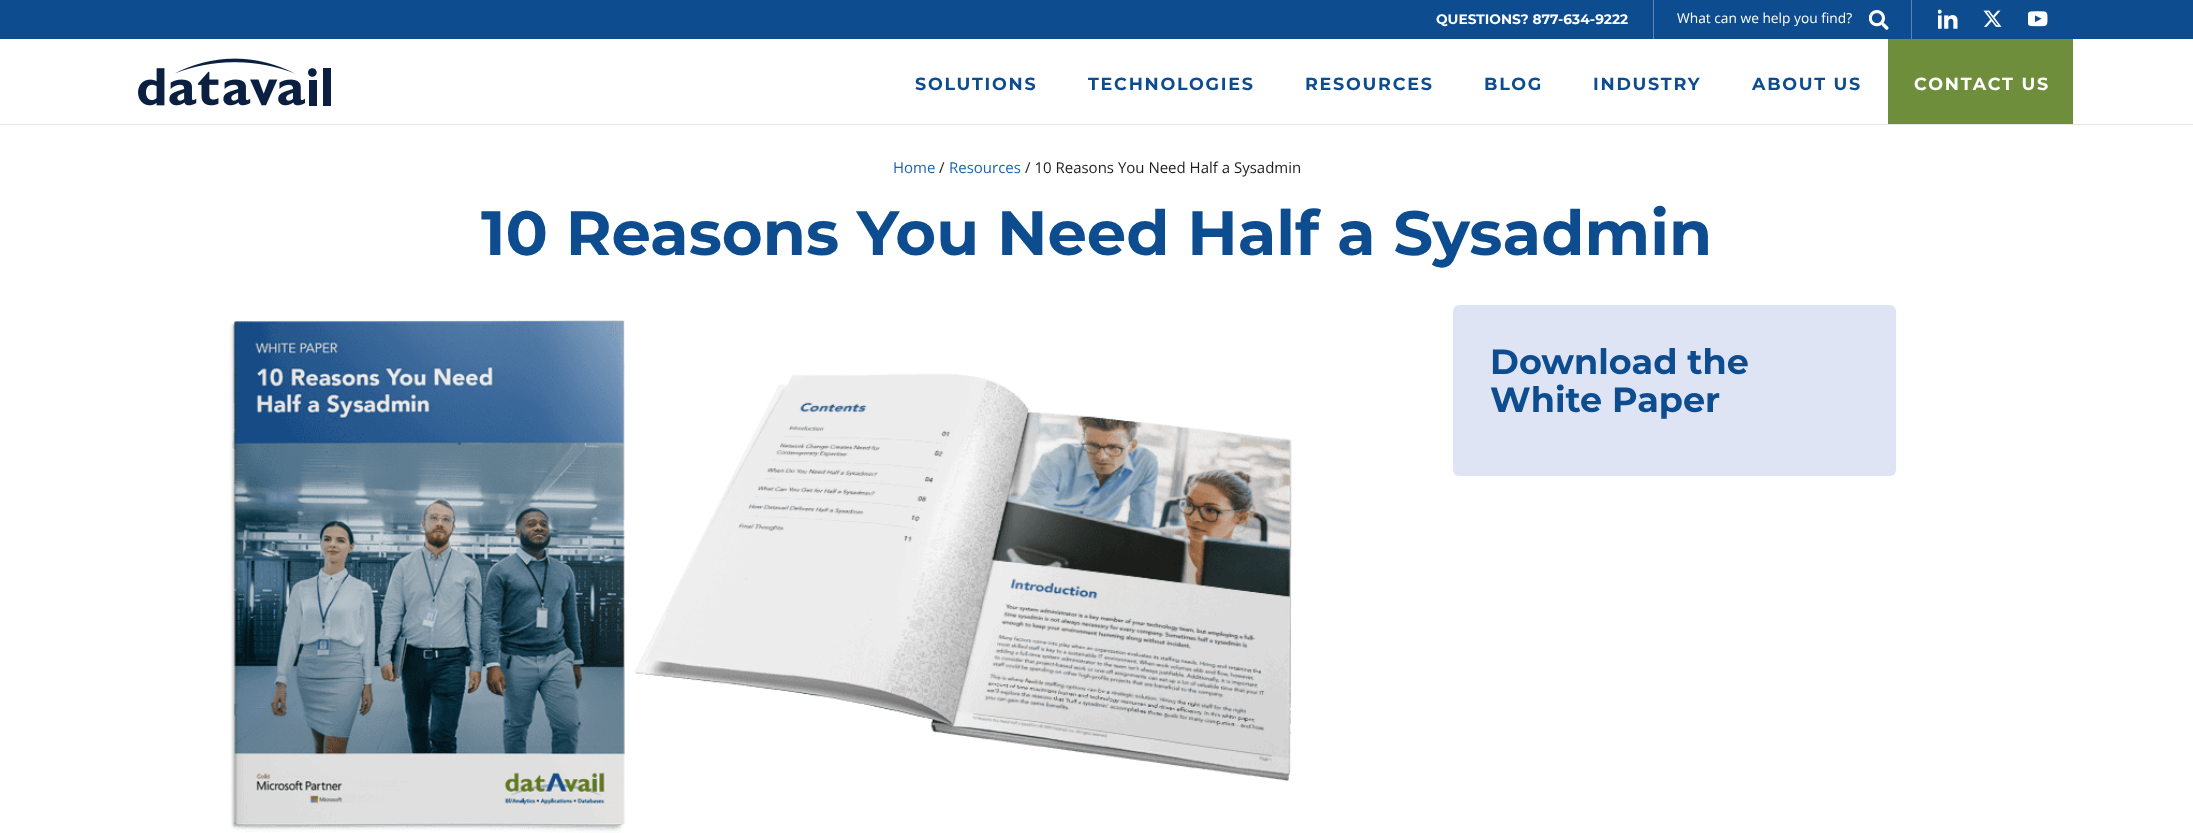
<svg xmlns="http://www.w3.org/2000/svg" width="2193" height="833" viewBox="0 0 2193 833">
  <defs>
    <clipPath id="clip1"><rect x="1676" y="8" width="182" height="18"/></clipPath>
  </defs>
  <rect width="100%" height="100%" fill="#ffffff"/>
  <rect x="0" y="0" width="2193" height="39" fill="#0d4c8f"/>
  <text x="1436" y="24" font-family="Montserrat" font-size="13.75" font-weight="100" fill="#ffffff">QUESTIONS? 877-634-9222</text>
  <rect x="1911" y="0" width="1" height="39" fill="#5a85b3"/>
  <rect x="1653" y="0" width="1" height="39" fill="#5a85b3"/>
  <g clip-path="url(#clip1)">
    <text x="1677" y="23" font-family="Open Sans" font-size="13.75" fill="#ffffff">What can we help you find?</text>
  </g>
  <image x="1869" y="10" width="20" height="20" href="img1.png"/>
  <image x="1938" y="9" width="20" height="20" href="img2.png"/>
  <image x="1983" y="10" width="19" height="17" href="img3.png"/>
  <image x="2028" y="11" width="20" height="16" href="img4.png"/>
  <path d="M0 124V125H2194V39V124Z" fill="#e6e6e6"/>
  <image x="138" y="58" width="193" height="48" href="img5.png"/>
  <text x="915" y="90" font-family="Montserrat" font-size="17.5" font-weight="100" letter-spacing="1.75" fill="#0d4c8f">SOLUTIONS</text>
  <text x="1088" y="90" font-family="Montserrat" font-size="17.5" font-weight="100" letter-spacing="1.75" fill="#0d4c8f">TECHNOLOGIES</text>
  <text x="1305" y="90" font-family="Montserrat" font-size="17.5" font-weight="100" letter-spacing="1.75" fill="#0d4c8f">RESOURCES</text>
  <text x="1484" y="90" font-family="Montserrat" font-size="17.5" font-weight="100" letter-spacing="1.75" fill="#0d4c8f">BLOG</text>
  <text x="1593" y="90" font-family="Montserrat" font-size="17.5" font-weight="100" letter-spacing="1.75" fill="#0d4c8f">INDUSTRY</text>
  <text x="1752" y="90" font-family="Montserrat" font-size="17.5" font-weight="100" letter-spacing="1.75" fill="#0d4c8f">ABOUT US</text>
  <rect x="1888" y="39" width="185" height="85" fill="#6e8e3b"/>
  <text x="1914" y="90" font-family="Montserrat" font-size="17.5" font-weight="100" letter-spacing="1.75" fill="#ffffff">CONTACT US</text>
  <text x="893" y="173" font-family="Open Sans" font-size="15" fill="#1e62ae">Home</text>
  <text x="939" y="173" font-family="Open Sans" font-size="15" fill="#1d1d1d">/</text>
  <text x="949" y="173" font-family="Open Sans" font-size="15" fill="#1e62ae">Resources</text>
  <text x="1025" y="173" font-family="Open Sans" font-size="15" fill="#1d1d1d">/ 10 Reasons You Need Half a Sysadmin</text>
  <text x="481" y="255" font-family="Montserrat" font-size="62.5" font-weight="100" fill="#0d4c8f">10 Reasons You Need Half a Sysadmin</text>
  <image x="229" y="320" width="1063" height="513" href="img6.png"/>
  <rect x="1453" y="305" width="443" height="171" rx="6" fill="#dfe4f5"/>
  <text x="1490" y="374" font-family="Montserrat" font-size="35" font-weight="100" fill="#0d4c8f">Download the</text>
  <text x="1490" y="412" font-family="Montserrat" font-size="35" font-weight="100" fill="#0d4c8f">White Paper</text>
</svg>
